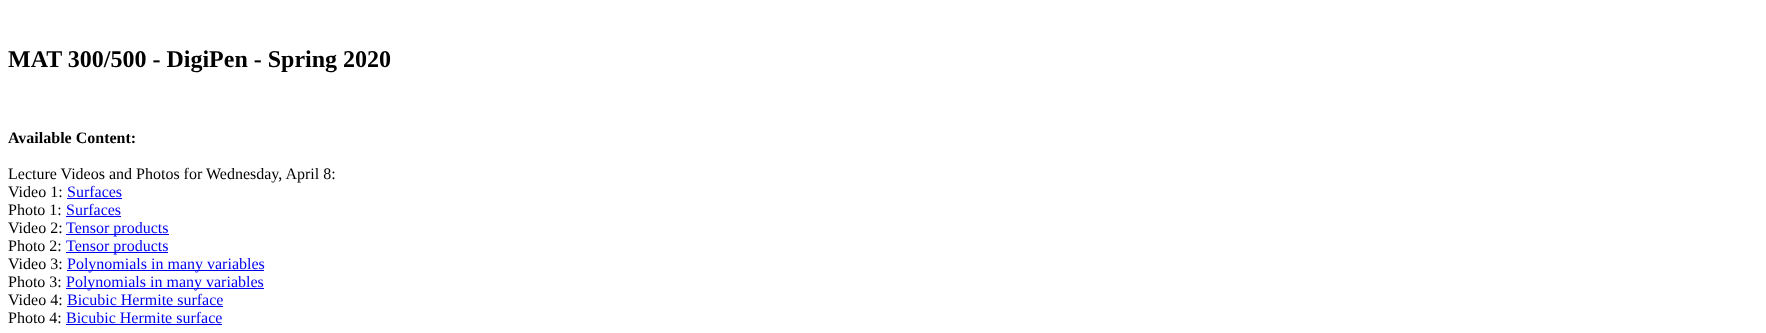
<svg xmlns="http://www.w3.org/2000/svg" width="1766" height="333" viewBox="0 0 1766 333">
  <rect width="100%" height="100%" fill="#ffffff"/>
  <text x="8" y="67" font-family="Liberation Serif" font-size="24" font-weight="bold" fill="#000000">MAT 300/500 - DigiPen - Spring 2020</text>
  <text x="8" y="143" font-family="Liberation Serif" font-size="16" font-weight="bold" fill="#000000">Available Content:</text>
  <text x="8" y="179" font-family="Liberation Serif" font-size="16" fill="#000000">Lecture Videos and Photos for Wednesday, April 8:</text>
  <text x="8" y="197" font-family="Liberation Serif" font-size="16" fill="#000000">Video 1:</text>
  <text x="67" y="197" font-family="Liberation Serif" font-size="16" fill="#0000ee">Surfaces</text>
  <rect x="67" y="198" width="55" height="1" fill="#0000ee"/>
  <text x="8" y="215" font-family="Liberation Serif" font-size="16" fill="#000000">Photo 1:</text>
  <text x="66" y="215" font-family="Liberation Serif" font-size="16" fill="#0000ee">Surfaces</text>
  <rect x="66" y="216" width="55" height="1" fill="#0000ee"/>
  <text x="8" y="233" font-family="Liberation Serif" font-size="16" fill="#000000">Video 2:</text>
  <rect x="66" y="234" width="103" height="1" fill="#0000ee"/>
  <text x="66" y="233" font-family="Liberation Serif" font-size="16" fill="#0000ee">Tensor products</text>
  <text x="8" y="251" font-family="Liberation Serif" font-size="16" fill="#000000">Photo 2:</text>
  <rect x="66" y="252" width="102" height="1" fill="#0000ee"/>
  <text x="66" y="251" font-family="Liberation Serif" font-size="16" fill="#0000ee">Tensor products</text>
  <text x="8" y="269" font-family="Liberation Serif" font-size="16" fill="#000000">Video 3:</text>
  <rect x="67" y="270" width="197" height="1" fill="#0000ee"/>
  <text x="67" y="269" font-family="Liberation Serif" font-size="16" fill="#0000ee">Polynomials in many variables</text>
  <text x="8" y="287" font-family="Liberation Serif" font-size="16" fill="#000000">Photo 3:</text>
  <rect x="66" y="288" width="198" height="1" fill="#0000ee"/>
  <text x="66" y="287" font-family="Liberation Serif" font-size="16" fill="#0000ee">Polynomials in many variables</text>
  <text x="8" y="305" font-family="Liberation Serif" font-size="16" fill="#000000">Video 4:</text>
  <text x="67" y="305" font-family="Liberation Serif" font-size="16" fill="#0000ee">Bicubic Hermite surface</text>
  <rect x="67" y="306" width="156" height="1" fill="#0000ee"/>
  <text x="8" y="323" font-family="Liberation Serif" font-size="16" fill="#000000">Photo 4:</text>
  <text x="66" y="323" font-family="Liberation Serif" font-size="16" fill="#0000ee">Bicubic Hermite surface</text>
  <rect x="66" y="324" width="156" height="1" fill="#0000ee"/>
</svg>
